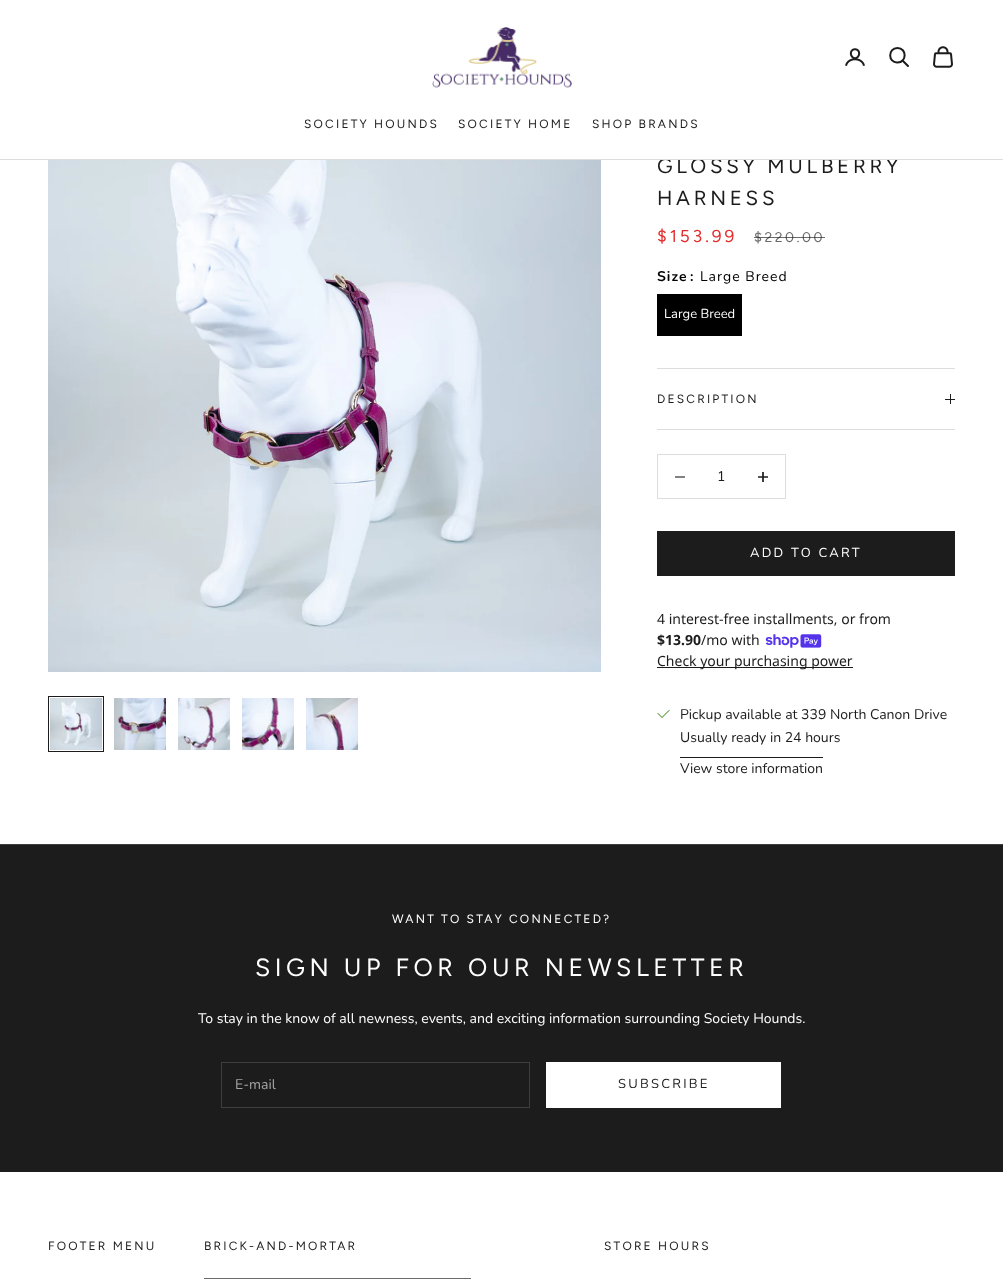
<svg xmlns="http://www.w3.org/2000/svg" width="1003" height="1286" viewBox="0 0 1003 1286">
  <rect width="100%" height="100%" fill="#ffffff"/>
  <text x="657" y="173" font-family="Figtree" font-size="20.5" letter-spacing="3.7" fill="#1c1c1c">GLOSSY MULBERRY</text>
  <rect x="662" y="158" width="236" height="1" fill="#ffffff"/>
  <rect x="0" y="159" width="1003" height="1" fill="#dddddd"/>
  <image x="432" y="27" width="140" height="61" href="img1.png"/>
  <image x="845" y="48" width="20" height="18" href="img2.png"/>
  <path d="M897.5 48C887.5 48 888 63 897.5 62.5C907 62.5 907 48 897.5 48Z" fill="none" stroke="#1c1c1c" stroke-width="2"/>
  <path d="M903 61L908 66" fill="none" stroke="#1c1c1c" stroke-width="2" stroke-linecap="round"/>
  <image x="933" y="46" width="20" height="22" href="img3.png"/>
  <text x="304" y="128" font-family="Figtree" font-size="12" letter-spacing="2.2" fill="#1c1c1c">SOCIETY HOUNDS</text>
  <text x="458" y="128" font-family="Figtree" font-size="12" letter-spacing="2.2" fill="#1c1c1c">SOCIETY HOME</text>
  <text x="592" y="128" font-family="Figtree" font-size="12" letter-spacing="2.2" fill="#1c1c1c">SHOP BRANDS</text>
  <image x="48" y="160" width="553" height="512" href="img4.png"/>
  <rect x="48.5" y="696.5" width="55" height="55" fill="none" stroke="#1c1c1c"/>
  <image x="50" y="698" width="52" height="52" href="img5.png"/>
  <image x="114" y="698" width="52" height="52" href="img6.png"/>
  <image x="178" y="698" width="52" height="52" href="img7.png"/>
  <image x="242" y="698" width="52" height="52" href="img8.png"/>
  <image x="306" y="698" width="52" height="52" href="img9.png"/>
  <text x="657" y="205" font-family="Figtree" font-size="20.5" letter-spacing="3.7" fill="#1c1c1c">HARNESS</text>
  <text x="657" y="242" font-family="Figtree" font-size="17.25" letter-spacing="3" fill="#e32c2b">$153.99</text>
  <text x="754" y="242" font-family="Figtree" font-size="14" letter-spacing="2.5" fill="#6b6b6b">$220.00</text>
  <rect x="754" y="237" width="71" height="1" fill="#1c1c1c" fill-opacity="0.65"/>
  <text x="657" y="281" font-family="Nunito" font-size="14" font-weight="bold" letter-spacing="1" fill="#000000">Size</text>
  <text x="690" y="281" font-family="Nunito" font-size="14" font-weight="bold" letter-spacing="1" fill="#000000">:</text>
  <text x="700" y="281" font-family="Nunito" font-size="14" letter-spacing="1" fill="#000000">Large Breed</text>
  <rect x="657.5" y="294.5" width="84" height="41" fill="none" stroke="#000000"/>
  <rect x="658" y="295" width="83" height="40" fill="#000000"/>
  <text x="664" y="318" font-family="Nunito" font-size="13" fill="#ffffff">Large Breed</text>
  <rect x="657" y="368" width="298" height="1" fill="#dddddd"/>
  <rect x="657" y="429" width="298" height="1" fill="#dddddd"/>
  <text x="657" y="403" font-family="Figtree" font-size="12" letter-spacing="2.2" fill="#1c1c1c">DESCRIPTION</text>
  <rect x="950" y="394" width="1" height="10" fill="#1c1c1c"/>
  <rect x="945" y="399" width="10" height="1" fill="#1c1c1c"/>
  <rect x="657.5" y="454.5" width="128" height="44" fill="none" stroke="#dddddd"/>
  <rect x="675" y="476" width="10" height="2" fill="#818181"/>
  <text x="717" y="481" font-family="Nunito" font-size="14" fill="#1c1c1c">1</text>
  <path d="M763 472V482M758 477H768" fill="none" stroke="#1c1c1c" stroke-width="1.7"/>
  <rect x="657.5" y="531.5" width="297" height="44" fill="#1c1c1c" stroke="#1c1c1c"/>
  <text x="750" y="557" font-family="Nunito" font-size="13" letter-spacing="2.25" fill="#ffffff">ADD TO CART</text>
  <text x="657" y="624" font-family="Noto Sans" font-size="14" fill="#1c1c1c">4 interest-free installments, or from</text>
  <text x="657" y="645" font-family="Noto Sans" font-size="14" font-weight="bold" fill="#1c1c1c">$13.90</text>
  <text x="701" y="645" font-family="Noto Sans" font-size="14" fill="#1c1c1c">/mo with</text>
  <image x="765" y="634" width="57" height="14" href="img10.png"/>
  <rect x="657" y="667" width="196" height="1" fill="#1c1c1c"/>
  <text x="657" y="666" font-family="Noto Sans" font-size="14" fill="#1c1c1c">Check your purchasing power</text>
  <path d="M658 713.5L662 717.5L669 710.5" fill="none" stroke="#307a07" stroke-linecap="square"/>
  <text x="680" y="719" font-family="Nunito" font-size="14" fill="#1c1c1c">Pickup available at 339 North Canon Drive</text>
  <text x="680" y="742" font-family="Nunito" font-size="14" fill="#1c1c1c">Usually ready in 24 hours</text>
  <rect x="680" y="757" width="143" height="1" fill="#1c1c1c"/>
  <text x="680" y="773" font-family="Nunito" font-size="14" fill="#1c1c1c">View store information</text>
  <rect x="0" y="845" width="1003" height="327" fill="#1c1c1c"/>
  <rect x="0" y="844" width="1003" height="1" fill="#3e3e3e"/>
  <text x="392" y="923" font-family="Figtree" font-size="12" letter-spacing="2.2" fill="#ffffff">WANT TO STAY CONNECTED?</text>
  <text x="255" y="976" font-family="Figtree" font-size="24.9" letter-spacing="4.5" fill="#ffffff">SIGN UP FOR OUR NEWSLETTER</text>
  <text x="198" y="1023" font-family="Nunito" font-size="14" fill="#ffffff">To stay in the know of all newness, events, and exciting information surrounding Society Hounds.</text>
  <rect x="221.5" y="1062.5" width="308" height="45" fill="none" stroke="#3e3e3e"/>
  <text x="235" y="1089" font-family="Nunito" font-size="14" fill="#a4a4a4">E-mail</text>
  <rect x="546.5" y="1062.5" width="234" height="45" fill="#ffffff" stroke="#ffffff"/>
  <text x="618" y="1088" font-family="Nunito" font-size="13" letter-spacing="2.25" fill="#1c1c1c">SUBSCRIBE</text>
  <text x="48" y="1250" font-family="Figtree" font-size="12" letter-spacing="2.2" fill="#1c1c1c">FOOTER MENU</text>
  <text x="204" y="1250" font-family="Figtree" font-size="12" letter-spacing="2.2" fill="#1c1c1c">BRICK-AND-MORTAR</text>
  <rect x="204" y="1278" width="267" height="1" fill="#6b6b6b"/>
  <text x="604" y="1250" font-family="Figtree" font-size="12" letter-spacing="2.2" fill="#1c1c1c">STORE HOURS</text>
</svg>
